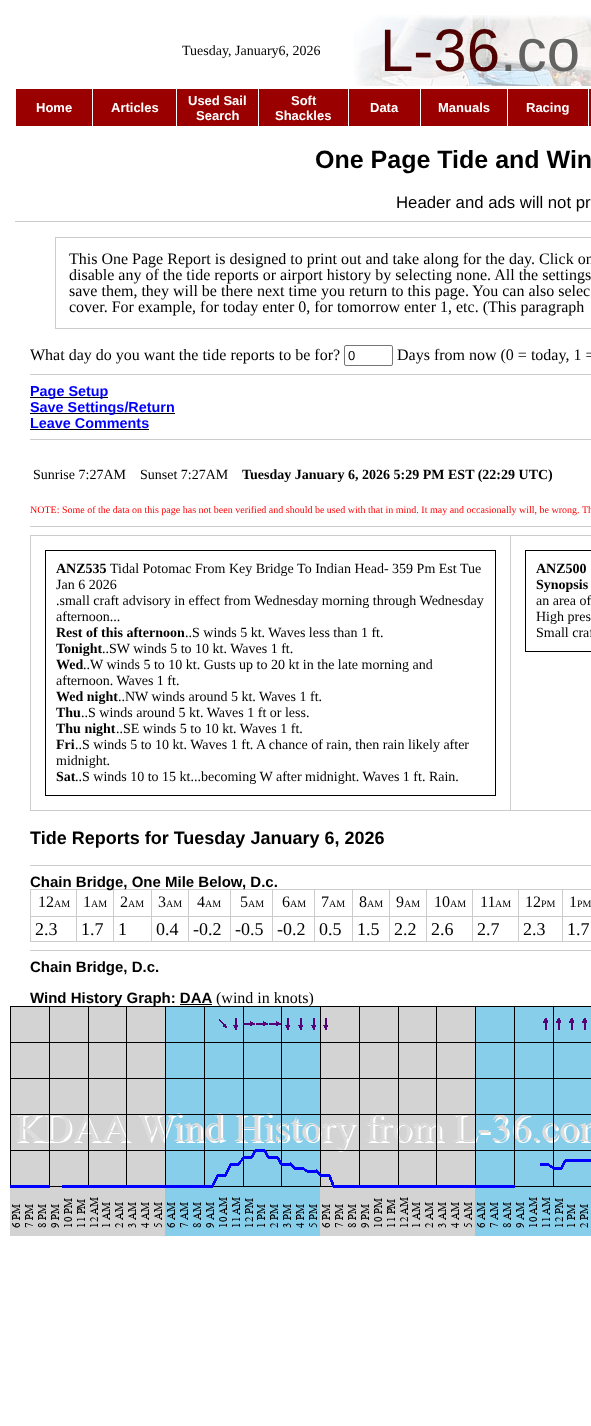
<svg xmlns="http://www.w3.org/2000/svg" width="591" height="1426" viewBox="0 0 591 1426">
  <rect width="100%" height="100%" fill="#ffffff"/>
  <text x="182" y="55" font-family="Liberation Serif" font-size="14" fill="#000000">Tuesday, January6, 2026</text>
  <image x="354" y="15" width="237" height="71" href="img1.png"/>
  <text x="380" y="71" font-family="Liberation Sans" font-size="60" fill="#4f0000">L-36</text>
  <text x="500" y="71" font-family="Liberation Sans" font-size="60" fill="#636363">.co</text>
  <rect x="16" y="89" width="76" height="37" fill="#9b0000"/>
  <text x="36" y="112" font-family="Liberation Sans" font-size="13" font-weight="bold" fill="#ffffff">Home</text>
  <rect x="93" y="89" width="83" height="37" fill="#9b0000"/>
  <text x="111" y="112" font-family="Liberation Sans" font-size="13" font-weight="bold" fill="#ffffff">Articles</text>
  <rect x="177" y="89" width="81" height="37" fill="#9b0000"/>
  <text x="188" y="105" font-family="Liberation Sans" font-size="13" font-weight="bold" fill="#ffffff">Used Sail</text>
  <text x="196" y="120" font-family="Liberation Sans" font-size="13" font-weight="bold" fill="#ffffff">Search</text>
  <rect x="259" y="89" width="89" height="37" fill="#9b0000"/>
  <text x="291" y="105" font-family="Liberation Sans" font-size="13" font-weight="bold" fill="#ffffff">Soft</text>
  <text x="275" y="120" font-family="Liberation Sans" font-size="13" font-weight="bold" fill="#ffffff">Shackles</text>
  <rect x="349" y="89" width="71" height="37" fill="#9b0000"/>
  <text x="370" y="112" font-family="Liberation Sans" font-size="13" font-weight="bold" fill="#ffffff">Data</text>
  <rect x="421" y="89" width="86" height="37" fill="#9b0000"/>
  <text x="438" y="112" font-family="Liberation Sans" font-size="13" font-weight="bold" fill="#ffffff">Manuals</text>
  <rect x="508" y="89" width="80" height="37" fill="#9b0000"/>
  <text x="526" y="112" font-family="Liberation Sans" font-size="13" font-weight="bold" fill="#ffffff">Racing</text>
  <rect x="589" y="89" width="2" height="37" fill="#9b0000"/>
  <text x="315" y="168" font-family="Liberation Sans" font-size="25" font-weight="bold" fill="#000000">One Page Tide and Win</text>
  <text x="396" y="208" font-family="Liberation Sans" font-size="16.75" fill="#000000">Header and ads will not pr</text>
  <rect x="15" y="221" width="576" height="1" fill="#cccccc"/>
  <rect x="55.5" y="237.5" width="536" height="91" fill="none" stroke="#cccccc"/>
  <text x="69" y="264" font-family="Liberation Serif" font-size="16" fill="#000000">This One Page Report is designed to print out and take along for the day. Click on</text>
  <text x="69" y="280" font-family="Liberation Serif" font-size="16" fill="#000000">disable any of the tide reports or airport history by selecting none. All the settings</text>
  <text x="69" y="296" font-family="Liberation Serif" font-size="16" fill="#000000">save them, they will be there next time you return to this page. You can also selec</text>
  <text x="69" y="312" font-family="Liberation Serif" font-size="16" fill="#000000">cover. For example, for today enter 0, for tomorrow enter 1, etc. (This paragraph</text>
  <text x="30" y="360" font-family="Liberation Serif" font-size="16" fill="#000000">What day do you want the tide reports to be for?</text>
  <rect x="344.5" y="345.5" width="48" height="20" rx="1.5" fill="none" stroke="#767676"/>
  <text x="348" y="360" font-family="Liberation Sans" font-size="13" fill="#000000">0</text>
  <text x="397" y="360" font-family="Liberation Serif" font-size="16" fill="#000000">Days from now (0 = today, 1 =</text>
  <rect x="30" y="374" width="561" height="1" fill="#cccccc"/>
  <rect x="30" y="397" width="78" height="1" fill="#000000"/>
  <text x="30" y="396" font-family="Liberation Sans" font-size="14.4" font-weight="bold" fill="#0000ff">Page Setup</text>
  <rect x="30" y="413" width="145" height="1" fill="#000000"/>
  <text x="30" y="412" font-family="Liberation Sans" font-size="14.4" font-weight="bold" fill="#0000ff">Save Settings/Return</text>
  <text x="30" y="428" font-family="Liberation Sans" font-size="14.4" font-weight="bold" fill="#0000ff">Leave Comments</text>
  <rect x="30" y="429" width="119" height="1" fill="#000000"/>
  <rect x="30" y="439" width="561" height="1" fill="#cccccc"/>
  <text x="33" y="479" font-family="Liberation Serif" font-size="14" fill="#000000">Sunrise 7:27AM</text>
  <text x="140" y="479" font-family="Liberation Serif" font-size="14" fill="#000000">Sunset 7:27AM</text>
  <text x="242" y="479" font-family="Liberation Serif" font-size="14" font-weight="bold" fill="#000000">Tuesday January 6, 2026 5:29 PM EST (22:29 UTC)</text>
  <text x="30" y="513" font-family="Liberation Serif" font-size="10" fill="#ff0000">NOTE: Some of the data on this page has not been verified and should be used with that in mind. It may and occasionally will, be wrong. Th</text>
  <rect x="30" y="526" width="561" height="1" fill="#cccccc"/>
  <rect x="30" y="535" width="561" height="1" fill="#cccccc"/>
  <rect x="30" y="810" width="561" height="1" fill="#cccccc"/>
  <rect x="30" y="535" width="1" height="276" fill="#cccccc"/>
  <rect x="45.5" y="550.5" width="450" height="245" fill="none" stroke="#000000"/>
  <text x="56" y="573" font-family="Liberation Serif" font-size="14" font-weight="bold" fill="#000000">ANZ535</text>
  <text x="110" y="573" font-family="Liberation Serif" font-size="14" fill="#000000">Tidal Potomac From Key Bridge To Indian Head- 359 Pm Est Tue</text>
  <text x="56" y="589" font-family="Liberation Serif" font-size="14" fill="#000000">Jan 6 2026</text>
  <text x="56" y="605" font-family="Liberation Serif" font-size="14" fill="#000000">.small craft advisory in effect from Wednesday morning through Wednesday</text>
  <text x="56" y="621" font-family="Liberation Serif" font-size="14" fill="#000000">afternoon...</text>
  <text x="56" y="637" font-family="Liberation Serif" font-size="14" font-weight="bold" fill="#000000">Rest of this afternoon</text>
  <text x="185" y="637" font-family="Liberation Serif" font-size="14" fill="#000000">..S winds 5 kt. Waves less than 1 ft.</text>
  <text x="56" y="653" font-family="Liberation Serif" font-size="14" font-weight="bold" fill="#000000">Tonight</text>
  <text x="102" y="653" font-family="Liberation Serif" font-size="14" fill="#000000">..SW winds 5 to 10 kt. Waves 1 ft.</text>
  <text x="56" y="669" font-family="Liberation Serif" font-size="14" font-weight="bold" fill="#000000">Wed</text>
  <text x="83" y="669" font-family="Liberation Serif" font-size="14" fill="#000000">..W winds 5 to 10 kt. Gusts up to 20 kt in the late morning and</text>
  <text x="56" y="685" font-family="Liberation Serif" font-size="14" fill="#000000">afternoon. Waves 1 ft.</text>
  <text x="56" y="701" font-family="Liberation Serif" font-size="14" font-weight="bold" fill="#000000">Wed night</text>
  <text x="118" y="701" font-family="Liberation Serif" font-size="14" fill="#000000">..NW winds around 5 kt. Waves 1 ft.</text>
  <text x="56" y="717" font-family="Liberation Serif" font-size="14" font-weight="bold" fill="#000000">Thu</text>
  <text x="81" y="717" font-family="Liberation Serif" font-size="14" fill="#000000">..S winds around 5 kt. Waves 1 ft or less.</text>
  <text x="56" y="733" font-family="Liberation Serif" font-size="14" font-weight="bold" fill="#000000">Thu night</text>
  <text x="116" y="733" font-family="Liberation Serif" font-size="14" fill="#000000">..SE winds 5 to 10 kt. Waves 1 ft.</text>
  <text x="56" y="749" font-family="Liberation Serif" font-size="14" font-weight="bold" fill="#000000">Fri</text>
  <text x="75" y="749" font-family="Liberation Serif" font-size="14" fill="#000000">..S winds 5 to 10 kt. Waves 1 ft. A chance of rain, then rain likely after</text>
  <text x="56" y="765" font-family="Liberation Serif" font-size="14" fill="#000000">midnight.</text>
  <text x="56" y="781" font-family="Liberation Serif" font-size="14" font-weight="bold" fill="#000000">Sat</text>
  <text x="75" y="781" font-family="Liberation Serif" font-size="14" fill="#000000">..S winds 10 to 15 kt...becoming W after midnight. Waves 1 ft. Rain.</text>
  <rect x="510" y="535" width="1" height="276" fill="#cccccc"/>
  <rect x="525.5" y="550.5" width="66" height="101" fill="none" stroke="#000000"/>
  <text x="536" y="573" font-family="Liberation Serif" font-size="14" font-weight="bold" fill="#000000">ANZ500</text>
  <text x="536" y="589" font-family="Liberation Serif" font-size="14" font-weight="bold" fill="#000000">Synopsis</text>
  <text x="536" y="605" font-family="Liberation Serif" font-size="14" fill="#000000">an area of</text>
  <text x="536" y="621" font-family="Liberation Serif" font-size="14" fill="#000000">High pres</text>
  <text x="536" y="637" font-family="Liberation Serif" font-size="14" fill="#000000">Small craf</text>
  <text x="30" y="844" font-family="Liberation Sans" font-size="18" font-weight="bold" fill="#000000">Tide Reports for Tuesday January 6, 2026</text>
  <rect x="30" y="865" width="561" height="1" fill="#cccccc"/>
  <rect x="30" y="889" width="561" height="1" fill="#cccccc"/>
  <rect x="30" y="941" width="561" height="1" fill="#cccccc"/>
  <rect x="30" y="889" width="1" height="53" fill="#cccccc"/>
  <rect x="562" y="916" width="29" height="1" fill="#cccccc"/>
  <rect x="562" y="916" width="1" height="26" fill="#cccccc"/>
  <rect x="518" y="916" width="45" height="1" fill="#cccccc"/>
  <rect x="518" y="916" width="1" height="26" fill="#cccccc"/>
  <rect x="472" y="916" width="47" height="1" fill="#cccccc"/>
  <rect x="472" y="916" width="1" height="26" fill="#cccccc"/>
  <rect x="426" y="916" width="47" height="1" fill="#cccccc"/>
  <rect x="426" y="916" width="1" height="26" fill="#cccccc"/>
  <rect x="389" y="916" width="38" height="1" fill="#cccccc"/>
  <rect x="389" y="916" width="1" height="26" fill="#cccccc"/>
  <rect x="352" y="916" width="38" height="1" fill="#cccccc"/>
  <rect x="352" y="916" width="1" height="26" fill="#cccccc"/>
  <rect x="314" y="916" width="39" height="1" fill="#cccccc"/>
  <rect x="314" y="916" width="1" height="26" fill="#cccccc"/>
  <rect x="272" y="916" width="43" height="1" fill="#cccccc"/>
  <rect x="272" y="916" width="1" height="26" fill="#cccccc"/>
  <rect x="230" y="916" width="43" height="1" fill="#cccccc"/>
  <rect x="230" y="916" width="1" height="26" fill="#cccccc"/>
  <rect x="188" y="916" width="43" height="1" fill="#cccccc"/>
  <rect x="188" y="916" width="1" height="26" fill="#cccccc"/>
  <rect x="151" y="916" width="38" height="1" fill="#cccccc"/>
  <rect x="151" y="916" width="1" height="26" fill="#cccccc"/>
  <rect x="113" y="916" width="39" height="1" fill="#cccccc"/>
  <rect x="113" y="916" width="1" height="26" fill="#cccccc"/>
  <rect x="76" y="916" width="38" height="1" fill="#cccccc"/>
  <rect x="76" y="916" width="1" height="26" fill="#cccccc"/>
  <rect x="30" y="916" width="47" height="1" fill="#cccccc"/>
  <rect x="76" y="889" width="1" height="28" fill="#cccccc"/>
  <rect x="113" y="889" width="1" height="28" fill="#cccccc"/>
  <rect x="151" y="889" width="1" height="28" fill="#cccccc"/>
  <rect x="188" y="889" width="1" height="28" fill="#cccccc"/>
  <rect x="230" y="889" width="1" height="28" fill="#cccccc"/>
  <rect x="272" y="889" width="1" height="28" fill="#cccccc"/>
  <text x="30" y="887" font-family="Liberation Sans" font-size="15" font-weight="bold" fill="#000000">Chain Bridge, One Mile Below, D.c.</text>
  <text x="38" y="907" font-family="Liberation Serif" font-size="16" fill="#000000">12</text>
  <text x="54" y="907" font-family="Liberation Serif" font-size="10" fill="#000000">AM</text>
  <text x="83" y="907" font-family="Liberation Serif" font-size="16" fill="#000000">1</text>
  <text x="91" y="907" font-family="Liberation Serif" font-size="10" fill="#000000">AM</text>
  <text x="120" y="907" font-family="Liberation Serif" font-size="16" fill="#000000">2</text>
  <text x="128" y="907" font-family="Liberation Serif" font-size="10" fill="#000000">AM</text>
  <text x="158" y="907" font-family="Liberation Serif" font-size="16" fill="#000000">3</text>
  <text x="166" y="907" font-family="Liberation Serif" font-size="10" fill="#000000">AM</text>
  <text x="197" y="907" font-family="Liberation Serif" font-size="16" fill="#000000">4</text>
  <text x="205" y="907" font-family="Liberation Serif" font-size="10" fill="#000000">AM</text>
  <text x="240" y="907" font-family="Liberation Serif" font-size="16" fill="#000000">5</text>
  <text x="248" y="907" font-family="Liberation Serif" font-size="10" fill="#000000">AM</text>
  <text x="282" y="907" font-family="Liberation Serif" font-size="16" fill="#000000">6</text>
  <text x="290" y="907" font-family="Liberation Serif" font-size="10" fill="#000000">AM</text>
  <rect x="314" y="889" width="1" height="28" fill="#cccccc"/>
  <text x="321" y="907" font-family="Liberation Serif" font-size="16" fill="#000000">7</text>
  <text x="329" y="907" font-family="Liberation Serif" font-size="10" fill="#000000">AM</text>
  <rect x="352" y="889" width="1" height="28" fill="#cccccc"/>
  <text x="359" y="907" font-family="Liberation Serif" font-size="16" fill="#000000">8</text>
  <text x="367" y="907" font-family="Liberation Serif" font-size="10" fill="#000000">AM</text>
  <rect x="389" y="889" width="1" height="28" fill="#cccccc"/>
  <text x="396" y="907" font-family="Liberation Serif" font-size="16" fill="#000000">9</text>
  <text x="404" y="907" font-family="Liberation Serif" font-size="10" fill="#000000">AM</text>
  <rect x="426" y="889" width="1" height="28" fill="#cccccc"/>
  <text x="434" y="907" font-family="Liberation Serif" font-size="16" fill="#000000">10</text>
  <text x="450" y="907" font-family="Liberation Serif" font-size="10" fill="#000000">AM</text>
  <rect x="472" y="889" width="1" height="28" fill="#cccccc"/>
  <text x="480" y="907" font-family="Liberation Serif" font-size="16" fill="#000000">11</text>
  <text x="495" y="907" font-family="Liberation Serif" font-size="10" fill="#000000">AM</text>
  <rect x="518" y="889" width="1" height="28" fill="#cccccc"/>
  <text x="525" y="907" font-family="Liberation Serif" font-size="16" fill="#000000">12</text>
  <text x="541" y="907" font-family="Liberation Serif" font-size="10" fill="#000000">PM</text>
  <rect x="562" y="889" width="1" height="28" fill="#cccccc"/>
  <text x="569" y="907" font-family="Liberation Serif" font-size="16" fill="#000000">1</text>
  <text x="577" y="907" font-family="Liberation Serif" font-size="10" fill="#000000">PM</text>
  <text x="35" y="935" font-family="Liberation Serif" font-size="18" fill="#000000">2.3</text>
  <text x="81" y="935" font-family="Liberation Serif" font-size="18" fill="#000000">1.7</text>
  <text x="118" y="935" font-family="Liberation Serif" font-size="18" fill="#000000">1</text>
  <text x="156" y="935" font-family="Liberation Serif" font-size="18" fill="#000000">0.4</text>
  <text x="193" y="935" font-family="Liberation Serif" font-size="18" fill="#000000">-0.2</text>
  <text x="235" y="935" font-family="Liberation Serif" font-size="18" fill="#000000">-0.5</text>
  <text x="277" y="935" font-family="Liberation Serif" font-size="18" fill="#000000">-0.2</text>
  <text x="319" y="935" font-family="Liberation Serif" font-size="18" fill="#000000">0.5</text>
  <text x="357" y="935" font-family="Liberation Serif" font-size="18" fill="#000000">1.5</text>
  <text x="394" y="935" font-family="Liberation Serif" font-size="18" fill="#000000">2.2</text>
  <text x="431" y="935" font-family="Liberation Serif" font-size="18" fill="#000000">2.6</text>
  <text x="477" y="935" font-family="Liberation Serif" font-size="18" fill="#000000">2.7</text>
  <text x="523" y="935" font-family="Liberation Serif" font-size="18" fill="#000000">2.3</text>
  <text x="567" y="935" font-family="Liberation Serif" font-size="18" fill="#000000">1.7</text>
  <rect x="30" y="950" width="561" height="1" fill="#cccccc"/>
  <text x="30" y="972" font-family="Liberation Sans" font-size="15" font-weight="bold" fill="#000000">Chain Bridge, D.c.</text>
  <text x="30" y="1003" font-family="Liberation Sans" font-size="15" font-weight="bold" fill="#000000">Wind History Graph: DAA</text>
  <rect x="180" y="1004" width="32" height="1" fill="#000000"/>
  <text x="216" y="1003" font-family="Liberation Serif" font-size="16" fill="#000000">(wind in knots)</text>
  <image x="10" y="1006" width="581" height="230" href="img2.png"/>
</svg>
